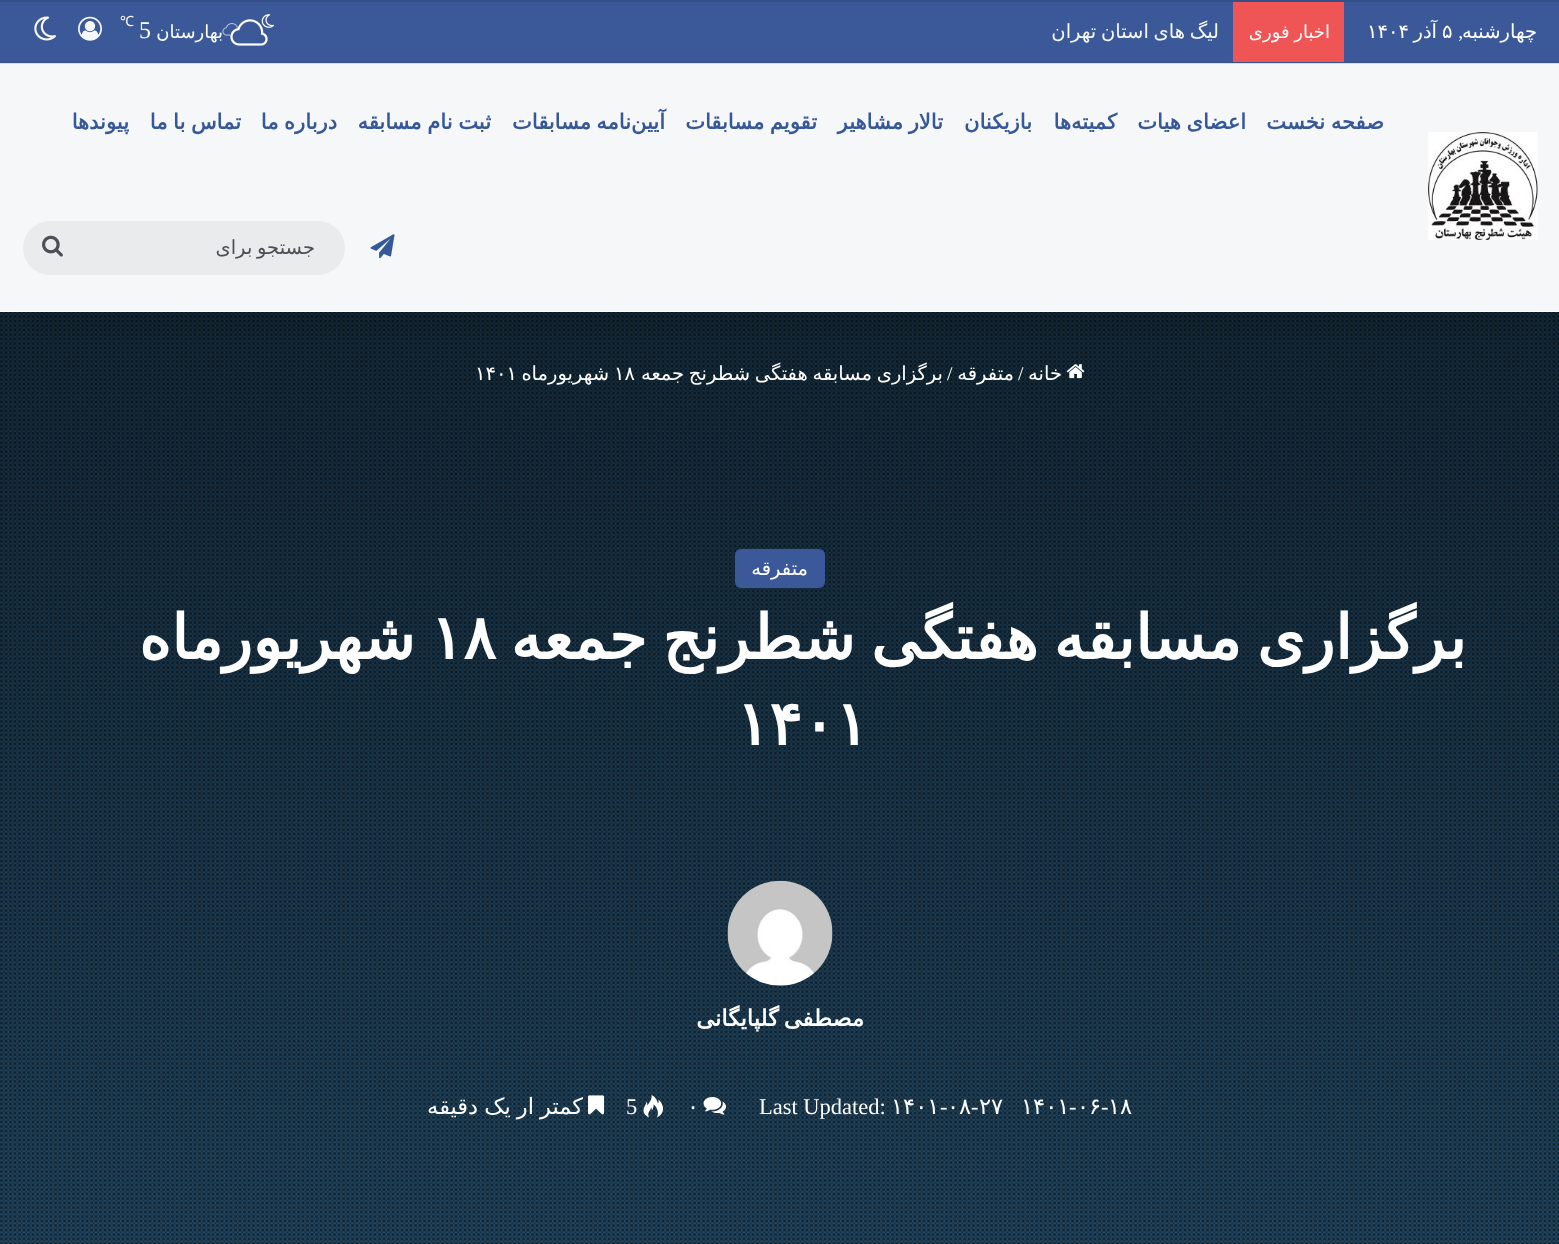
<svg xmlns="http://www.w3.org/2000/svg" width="1559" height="1244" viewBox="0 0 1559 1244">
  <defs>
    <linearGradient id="g1" gradientUnits="userSpaceOnUse" x1="780" y1="0" x2="780" y2="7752"><stop offset="0.02" stop-color="#000000" stop-opacity="0.5"/><stop offset="0.17" stop-color="#000000" stop-opacity="0"/></linearGradient>
    <filter id="blur1" x="-50%" y="-200%" width="200%" height="500%"><feGaussianBlur stdDeviation="15"/></filter>
    <clipPath id="clip1"><rect x="1050" y="2" width="168" height="60"/></clipPath>
  </defs>
  <rect width="100%" height="100%" fill="#27506f"/>
  <image x="0" y="312" width="1559" height="932" href="img1.png"/>
  <rect x="0" y="312" width="1559" height="932" fill="url(#g1)"/>
  <image x="1066" y="364" width="19" height="15" href="img11.png"/>
  <rect x="30" y="68" width="1500" height="252" fill="#000000" fill-opacity="0.1" filter="url(#blur1)"/>
  <rect x="0" y="311" width="1559" height="1" fill="#ffffff"/>
  <rect x="0" y="2" width="1559" height="61" fill="#3b5998"/>
  <rect x="0" y="0" width="1559" height="2" fill="#355089"/>
  <rect x="0" y="63" width="1559" height="248" fill="#f6f7f9"/>
  <rect x="0" y="62" width="1559" height="2" fill="#000000" fill-opacity="0.1"/>
  <text x="1537" y="38" font-family="DejaVu Sans" font-size="19.5" direction="rtl" fill="#ffffff">چهارشنبه</text>
  <text x="1463" y="38" font-family="Liberation Serif" font-size="19.5" direction="rtl" fill="#ffffff">,</text>
  <text x="1442" y="38" font-family="DejaVu Sans" font-size="19.5" fill="#ffffff">۵</text>
  <text x="1437" y="38" font-family="DejaVu Sans" font-size="19.5" direction="rtl" fill="#ffffff">آذر</text>
  <text x="1367" y="38" font-family="DejaVu Sans" font-size="19.5" fill="#ffffff">۱۴۰۴</text>
  <rect x="1233" y="2" width="111" height="60" fill="#f05555"/>
  <text x="1330" y="38" word-spacing="-1" font-family="DejaVu Sans" font-size="18" direction="rtl" fill="#ffffff">اخبار فوری</text>
  <g clip-path="url(#clip1)">
    <text x="1219" y="38" word-spacing="-1.5" font-family="DejaVu Sans" font-size="19.5" direction="rtl" fill="#f6f7f9">لیگ های استان تهران</text>
  </g>
  <image x="261" y="14" width="14" height="14" href="img2.png"/>
  <image x="222" y="23" width="16" height="13" href="img4.png"/>
  <image x="230" y="27" width="11" height="9" href="img5.png"/>
  <image x="230" y="19" width="38" height="27" href="img3.png"/>
  <text x="223" y="38" font-family="DejaVu Sans" font-size="18" direction="rtl" fill="#ffffff">بهارستان</text>
  <text x="139" y="38" font-family="Liberation Serif" font-size="24" fill="#ffffff">5</text>
  <text x="120" y="26" font-family="Noto Sans" font-size="14" fill="#ffffff">℃</text>
  <image x="78" y="16" width="24" height="25" href="img6.png"/>
  <image x="34" y="16" width="22" height="25" href="img7.png"/>
  <image x="1428" y="132" width="110" height="108" href="img8.png"/>
  <text x="1384" y="129" word-spacing="-1" font-family="DejaVu Sans" font-size="21" font-weight="bold" direction="rtl" fill="#365899">صفحه نخست</text>
  <text x="1246" y="129" word-spacing="-1" font-family="DejaVu Sans" font-size="21" font-weight="bold" direction="rtl" fill="#365899">اعضای هیات</text>
  <text x="1117" y="129" font-family="DejaVu Sans" font-size="21" font-weight="bold" direction="rtl" fill="#365899">کمیته</text>
  <text x="1071" y="129" font-family="DejaVu Sans" font-size="21" font-weight="bold" direction="rtl" fill="#365899">ها</text>
  <text x="1032" y="129" font-family="DejaVu Sans" font-size="21" font-weight="bold" direction="rtl" fill="#365899">بازیکنان</text>
  <text x="943" y="129" word-spacing="-1" font-family="DejaVu Sans" font-size="21" font-weight="bold" direction="rtl" fill="#365899">تالار مشاهیر</text>
  <text x="817" y="129" word-spacing="-1" font-family="DejaVu Sans" font-size="21" font-weight="bold" direction="rtl" fill="#365899">تقویم مسابقات</text>
  <text x="665" y="129" font-family="DejaVu Sans" font-size="21" font-weight="bold" direction="rtl" fill="#365899">آیین</text>
  <text x="631" y="129" font-family="DejaVu Sans" font-size="21" font-weight="bold" direction="rtl" fill="#365899">نامه</text>
  <text x="591" y="129" font-family="DejaVu Sans" font-size="21" font-weight="bold" direction="rtl" fill="#365899">مسابقات</text>
  <text x="491" y="129" word-spacing="-1" font-family="DejaVu Sans" font-size="21" font-weight="bold" direction="rtl" fill="#365899">ثبت نام مسابقه</text>
  <text x="337" y="129" word-spacing="-1" font-family="DejaVu Sans" font-size="21" font-weight="bold" direction="rtl" fill="#365899">درباره ما</text>
  <text x="241" y="129" word-spacing="-1" font-family="DejaVu Sans" font-size="21" font-weight="bold" direction="rtl" fill="#365899">تماس با ما</text>
  <text x="129" y="129" font-family="DejaVu Sans" font-size="21" font-weight="bold" direction="rtl" fill="#365899">پیوندها</text>
  <image x="370" y="234" width="25" height="25" href="img9.png"/>
  <rect x="23" y="221" width="322" height="54" rx="27" fill="#eaebed"/>
  <text x="315" y="254" word-spacing="-1.5" font-family="DejaVu Sans" font-size="19.5" direction="rtl" fill="#4b4f56">جستجو برای</text>
  <image x="42" y="235" width="21" height="22" href="img10.png"/>
  <text x="1062" y="380" font-family="DejaVu Sans" font-size="19.5" direction="rtl" fill="#ffffff">خانه</text>
  <text x="1018" y="380" font-family="Liberation Serif" font-size="19.5" fill="#ffffff">/</text>
  <text x="1014" y="380" font-family="DejaVu Sans" font-size="19.5" direction="rtl" fill="#ffffff">متفرقه</text>
  <text x="947" y="380" font-family="Liberation Serif" font-size="19.5" fill="#ffffff">/</text>
  <text x="943" y="380" word-spacing="-1.5" font-family="DejaVu Sans" font-size="19.5" direction="rtl" fill="#ffffff">برگزاری مسابقه هفتگی شطرنج جمعه</text>
  <text x="614" y="380" font-family="DejaVu Sans" font-size="19.5" fill="#ffffff">۱۸</text>
  <text x="609" y="380" font-family="DejaVu Sans" font-size="19.5" direction="rtl" fill="#ffffff">شهریورماه</text>
  <text x="475" y="380" font-family="DejaVu Sans" font-size="19.5" fill="#ffffff">۱۴۰۱</text>
  <rect x="735" y="549" width="90" height="39" rx="6" fill="#3b5998"/>
  <text x="808" y="575" font-family="DejaVu Sans" font-size="19.5" direction="rtl" fill="#ffffff">متفرقه</text>
  <text x="1466" y="659" word-spacing="-4" font-family="DejaVu Sans" font-size="61.5" font-weight="bold" direction="rtl" fill="#ffffff">برگزاری مسابقه هفتگی شطرنج جمعه</text>
  <text x="430" y="659" font-family="DejaVu Sans" font-size="61.5" font-weight="bold" fill="#ffffff">۱۸</text>
  <text x="415" y="659" font-family="DejaVu Sans" font-size="61.5" font-weight="bold" direction="rtl" fill="#ffffff">شهریورماه</text>
  <text x="736" y="745" font-family="DejaVu Sans" font-size="61.5" font-weight="bold" fill="#ffffff">۱۴۰۱</text>
  <image x="727" y="880" width="106" height="106" href="img12.png"/>
  <text x="864" y="1026" word-spacing="-2" font-family="DejaVu Sans" font-size="22.5" font-weight="bold" direction="rtl" fill="#ffffff">مصطفی گلپایگانی</text>
  <text x="1108" y="1114" font-family="DejaVu Sans" font-size="22.5" fill="#ffffff">۱۸</text>
  <text x="1101" y="1114" font-family="Liberation Serif" font-size="22.5" fill="#ffffff">-</text>
  <text x="1077" y="1114" font-family="DejaVu Sans" font-size="22.5" fill="#ffffff">۰۶</text>
  <text x="1069" y="1114" font-family="Liberation Serif" font-size="22.5" fill="#ffffff">-</text>
  <text x="1021" y="1114" font-family="DejaVu Sans" font-size="22.5" fill="#ffffff">۱۴۰۱</text>
  <text x="979" y="1114" font-family="DejaVu Sans" font-size="22.5" fill="#ffffff">۲۷</text>
  <text x="971" y="1114" font-family="Liberation Serif" font-size="22.5" fill="#ffffff">-</text>
  <text x="947" y="1114" font-family="DejaVu Sans" font-size="22.5" fill="#ffffff">۰۸</text>
  <text x="940" y="1114" font-family="Liberation Serif" font-size="22.5" fill="#ffffff">-</text>
  <text x="891" y="1114" font-family="DejaVu Sans" font-size="22.5" fill="#ffffff">۱۴۰۱</text>
  <text x="759" y="1114" font-family="Liberation Serif" font-size="22.5" fill="#ffffff">Last Updated:</text>
  <image x="703" y="1097" width="23" height="18" href="img13.png"/>
  <text x="687" y="1114" font-family="DejaVu Sans" font-size="22.5" fill="#ffffff">۰</text>
  <image x="643" y="1095" width="20" height="23" href="img14.png"/>
  <text x="626" y="1114" font-family="Liberation Serif" font-size="22.5" fill="#ffffff">5</text>
  <image x="588" y="1095" width="17" height="20" href="img15.png"/>
  <text x="583" y="1114" word-spacing="-1" font-family="DejaVu Sans" font-size="22.5" direction="rtl" fill="#ffffff">کمتر ار یک دقیقه</text>
</svg>
